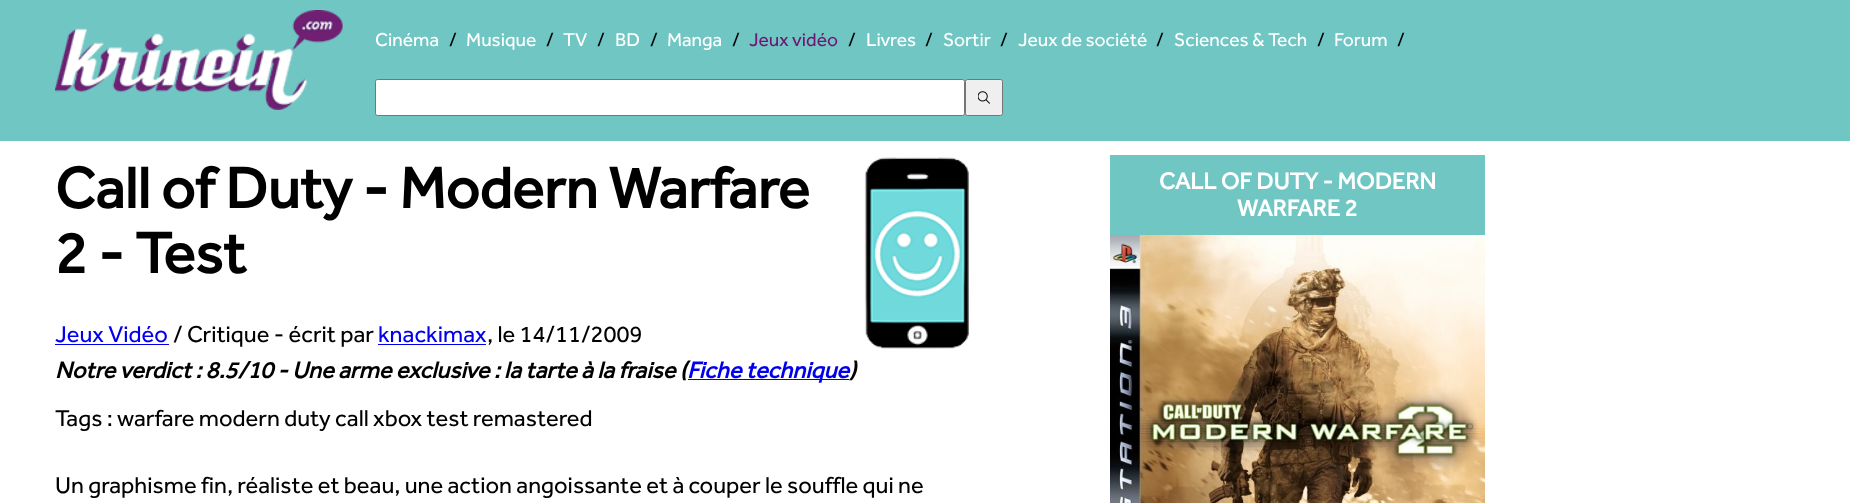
<svg xmlns="http://www.w3.org/2000/svg" width="1850" height="503" viewBox="0 0 1850 503">
  <rect width="100%" height="100%" fill="#ffffff"/>
  <rect x="0" y="0" width="1850" height="141" fill="#70c6c3"/>
  <image x="55" y="10" width="288" height="100" href="img1.png"/>
  <text x="375" y="46" font-family="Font" font-size="19.25" fill="#ffffff">Cinéma</text>
  <text x="449" y="46" font-family="Font" font-size="19.25" fill="#000000">/</text>
  <text x="466" y="46" font-family="Font" font-size="19.25" fill="#ffffff">Musique</text>
  <text x="546" y="46" font-family="Font" font-size="19.25" fill="#000000">/</text>
  <text x="563" y="46" font-family="Font" font-size="19.25" fill="#ffffff">TV</text>
  <text x="597" y="46" font-family="Font" font-size="19.25" fill="#000000">/</text>
  <text x="615" y="46" font-family="Font" font-size="19.25" fill="#ffffff">BD</text>
  <text x="650" y="46" font-family="Font" font-size="19.25" fill="#000000">/</text>
  <text x="667" y="46" font-family="Font" font-size="19.25" fill="#ffffff">Manga</text>
  <text x="732" y="46" font-family="Font" font-size="19.25" fill="#000000">/</text>
  <text x="749" y="46" font-family="Font" font-size="19.25" fill="#701773">Jeux vidéo</text>
  <text x="848" y="46" font-family="Font" font-size="19.25" fill="#000000">/</text>
  <text x="866" y="46" font-family="Font" font-size="19.25" fill="#ffffff">Livres</text>
  <text x="925" y="46" font-family="Font" font-size="19.25" fill="#000000">/</text>
  <text x="943" y="46" font-family="Font" font-size="19.25" fill="#ffffff">Sortir</text>
  <text x="1000" y="46" font-family="Font" font-size="19.25" fill="#000000">/</text>
  <text x="1018" y="46" font-family="Font" font-size="19.25" fill="#ffffff">Jeux de société</text>
  <text x="1156" y="46" font-family="Font" font-size="19.25" fill="#000000">/</text>
  <text x="1174" y="46" font-family="Font" font-size="19.25" fill="#ffffff">Sciences &amp; Tech</text>
  <text x="1317" y="46" font-family="Font" font-size="19.25" fill="#000000">/</text>
  <text x="1334" y="46" font-family="Font" font-size="19.25" fill="#ffffff">Forum</text>
  <text x="1397" y="46" font-family="Font" font-size="19.25" fill="#000000">/</text>
  <rect x="375.5" y="79.5" width="589" height="36" rx="2" fill="#ffffff" stroke="#767676"/>
  <rect x="965.5" y="79.5" width="37" height="36" rx="2" fill="#efefef" stroke="#767676"/>
  <image x="978" y="91" width="12" height="13" href="img2.png"/>
  <text x="55" y="208" font-family="Font" font-size="59.4" font-weight="bold" fill="#000000">Call of Duty - Modern Warfare</text>
  <image x="864" y="157" width="105" height="192" href="img3.png"/>
  <text x="55" y="273" font-family="Font" font-size="59.4" font-weight="bold" fill="#000000">2 - Test</text>
  <text x="55" y="342" font-family="Font" font-size="23.75" fill="#0000ee">Jeux Vidéo</text>
  <rect x="55" y="344" width="114" height="1" fill="#0000ee"/>
  <text x="173" y="342" font-family="Font" font-size="23.75" fill="#000000">/ Critique - écrit par</text>
  <text x="378" y="342" font-family="Font" font-size="23.75" fill="#0000ee">knackimax</text>
  <rect x="378" y="344" width="108" height="1" fill="#0000ee"/>
  <text x="487" y="342" font-family="Font" font-size="23.75" fill="#000000">, le 14/11/2009</text>
  <text x="55" y="378" font-family="Font" font-size="23.75" font-weight="bold" font-style="italic" fill="#000000">Notre verdict : 8.5/10 - Une arme exclusive : la tarte à la fraise (</text>
  <rect x="688" y="379" width="161" height="1" fill="#0000ee"/>
  <text x="687" y="378" font-family="Font" font-size="23.75" font-weight="bold" font-style="italic" fill="#0000ee">Fiche technique</text>
  <text x="849" y="378" font-family="Font" font-size="23.75" font-weight="bold" font-style="italic" fill="#000000">)</text>
  <text x="55" y="426" font-family="Font" font-size="23.75" fill="#000000">Tags : warfare modern duty call xbox test remastered</text>
  <text x="55" y="493" font-family="Font" font-size="23.75" fill="#000000">Un graphisme fin, réaliste et beau, une action angoissante et à couper le souffle qui ne</text>
  <rect x="1110" y="155" width="375" height="80" fill="#70c6c3"/>
  <text x="1159" y="189" font-family="Font" font-size="23.9" font-weight="bold" fill="#ffffff">CALL OF DUTY - MODERN</text>
  <text x="1237" y="216" font-family="Font" font-size="23.9" font-weight="bold" fill="#ffffff">WARFARE 2</text>
  <image x="1110" y="235" width="375" height="268" href="img4.png"/>
</svg>
